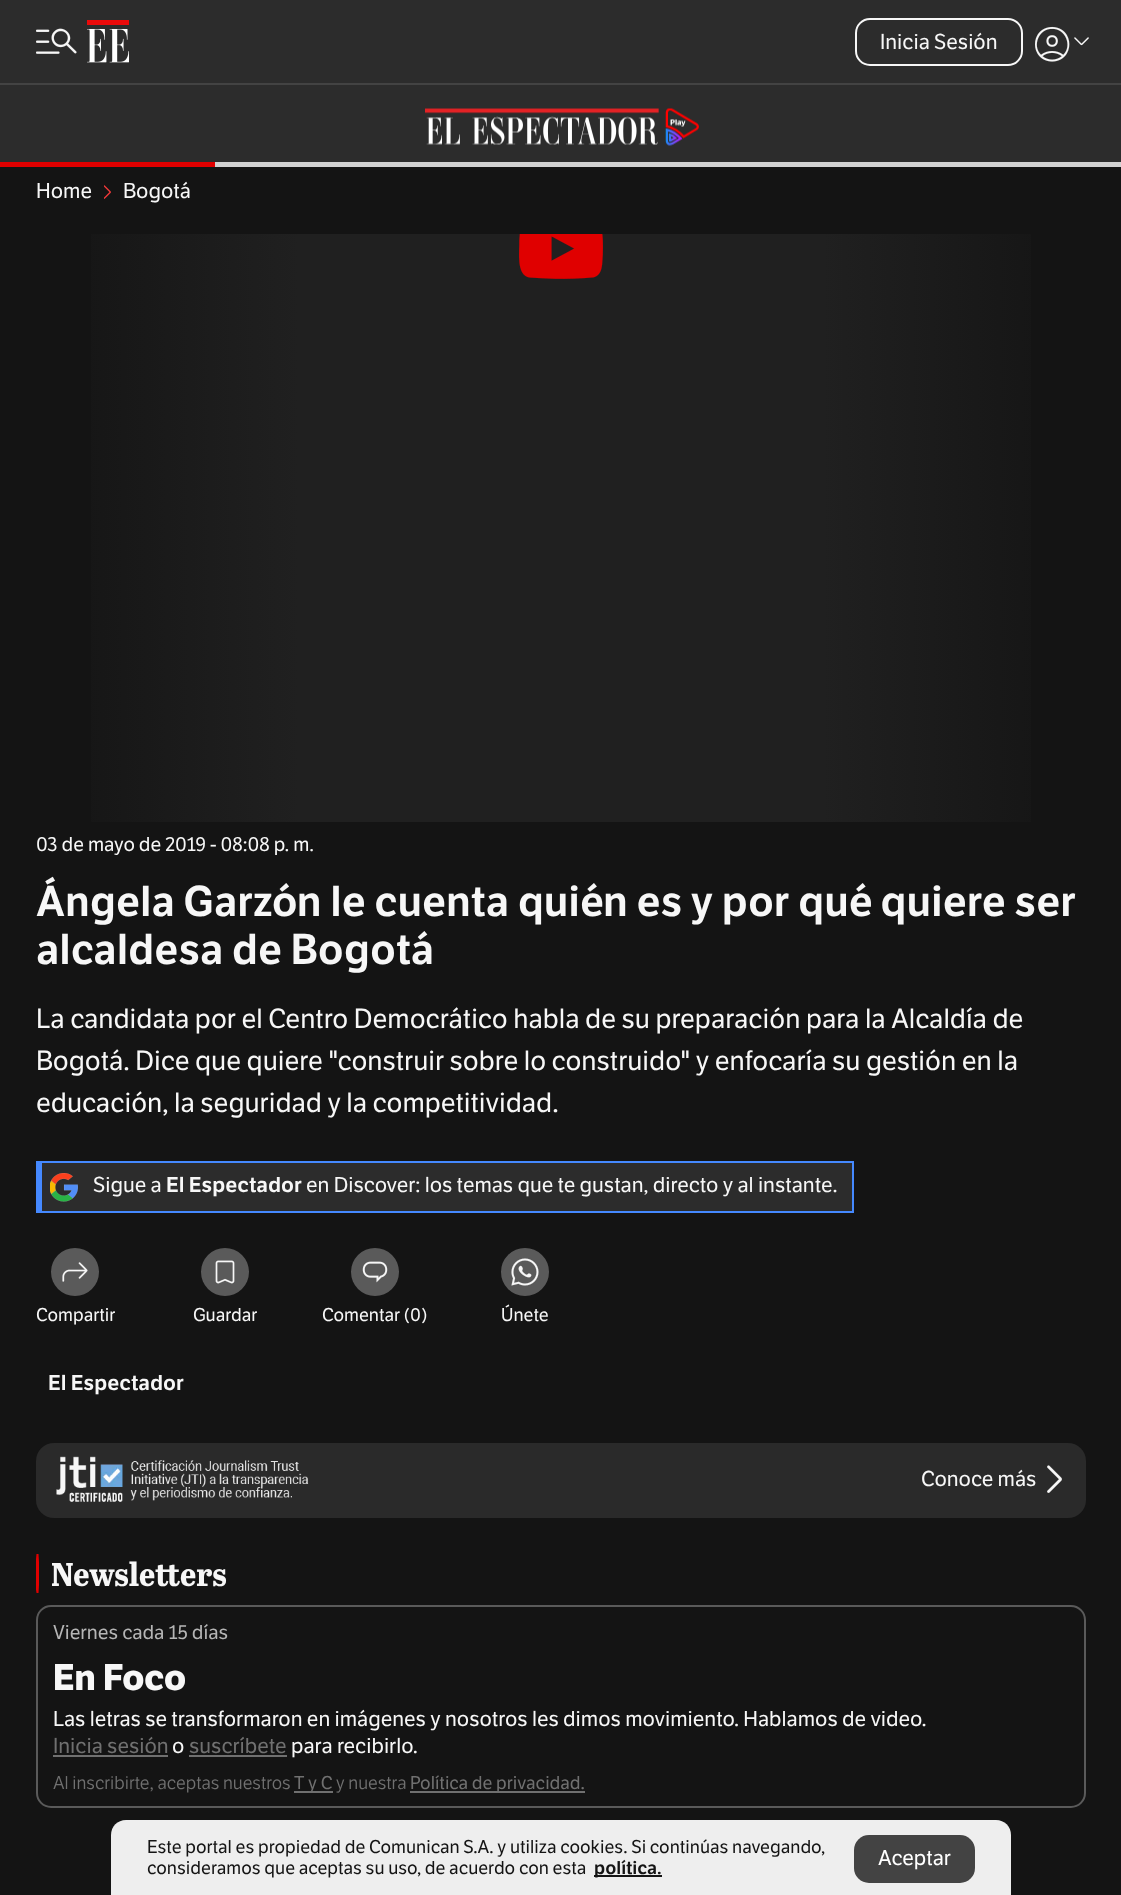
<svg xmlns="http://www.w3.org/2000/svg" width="1121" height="1895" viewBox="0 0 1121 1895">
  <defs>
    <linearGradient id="g1" gradientUnits="userSpaceOnUse" x1="1086" y1="528" x2="36" y2="528"><stop offset="0" stop-color="#141414"/><stop offset="0.25" stop-color="#202020"/><stop offset="0.75" stop-color="#202020"/><stop offset="1" stop-color="#141414"/></linearGradient>
  </defs>
  <rect width="100%" height="100%" fill="#141414"/>
  <rect x="0" y="0" width="1121" height="162" fill="#2c2c2c"/>
  <rect x="0" y="83" width="1121" height="2" fill="#434343"/>
  <image x="36" y="28" width="41" height="26" href="img1.png"/>
  <image x="87" y="20" width="42" height="43" href="img2.png"/>
  <rect x="856" y="19" width="166" height="46" rx="14" fill="none" stroke="#f7f7f7" stroke-width="2"/>
  <text x="880" y="49" font-family="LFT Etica" font-size="21" fill="#f7f7f7">Inicia Sesión</text>
  <image x="1035" y="26" width="35" height="36" href="img3.png"/>
  <image x="1074" y="37" width="15" height="9" href="img4.png"/>
  <image x="425" y="108" width="274" height="38" href="img5.png"/>
  <rect x="215" y="162" width="906" height="5" fill="#d2d2d2"/>
  <rect x="0" y="162" width="215" height="5" fill="#e00000"/>
  <text x="36" y="198" font-family="LFT Etica" font-size="21" fill="#f7f7f7">Home</text>
  <image x="104" y="185" width="7" height="14" href="img6.png"/>
  <text x="123" y="198" font-family="LFT Etica" font-size="21" fill="#f7f7f7">Bogotá</text>
  <rect x="91" y="234" width="940" height="588" fill="url(#g1)"/>
  <image x="519" y="234" width="84" height="45" href="img7.png"/>
  <text x="36" y="851" font-family="LFT Etica" font-size="19.5" fill="#f7f7f7">03 de mayo de 2019 - 08:08 p. m.</text>
  <text x="36" y="916" font-family="LFT Etica" font-size="42" font-weight="600" fill="#f7f7f7">Ángela Garzón le cuenta quién es y por qué quiere ser</text>
  <text x="36" y="964" font-family="LFT Etica" font-size="42" font-weight="600" fill="#f7f7f7">alcaldesa de Bogotá</text>
  <text x="36" y="1028" font-family="LFT Etica" font-size="27" fill="#f7f7f7">La candidata por el Centro Democrático habla de su preparación para la Alcaldía de</text>
  <text x="36" y="1070" font-family="LFT Etica" font-size="27" fill="#f7f7f7">Bogotá. Dice que quiere "construir sobre lo construido" y enfocaría su gestión en la</text>
  <text x="36" y="1112" font-family="LFT Etica" font-size="27" fill="#f7f7f7">educación, la seguridad y la competitividad.</text>
  <rect x="42" y="1163" width="810" height="48" fill="#2c2c2c"/>
  <rect x="36" y="1161" width="818" height="2" fill="#4589ff"/>
  <rect x="852" y="1161" width="2" height="51" fill="#4589ff"/>
  <rect x="36" y="1211" width="818" height="2" fill="#4589ff"/>
  <rect x="36" y="1161" width="6" height="51" fill="#4589ff"/>
  <image x="50" y="1173" width="28" height="29" href="img8.png"/>
  <text x="93" y="1192" font-family="LFT Etica" font-size="21" fill="#f7f7f7">Sigue a</text>
  <text x="166" y="1192" font-family="LFT Etica" font-size="21" font-weight="600" fill="#f7f7f7">El Espectador</text>
  <text x="306" y="1192" font-family="LFT Etica" font-size="21" fill="#f7f7f7">en Discover: los temas que te gustan, directo y al instante.</text>
  <circle cx="75" cy="1272" r="24" fill="#5a5a5a"/>
  <image x="62" y="1262" width="26" height="20" href="img9.png"/>
  <text x="36" y="1321" font-family="LFT Etica" font-size="18" fill="#f7f7f7">Compartir</text>
  <circle cx="225" cy="1272" r="24" fill="#5a5a5a"/>
  <image x="215" y="1260" width="20" height="24" href="img10.png"/>
  <text x="193" y="1321" font-family="LFT Etica" font-size="18" fill="#f7f7f7">Guardar</text>
  <circle cx="375" cy="1272" r="24" fill="#5a5a5a"/>
  <image x="362" y="1261" width="26" height="22" href="img11.png"/>
  <text x="322" y="1321" font-family="LFT Etica" font-size="18" fill="#f7f7f7">Comentar (0)</text>
  <circle cx="525" cy="1272" r="19.5" fill="#5a5a5a" stroke="#5a5a5a" stroke-width="9"/>
  <image x="511" y="1258" width="28" height="28" href="img12.png"/>
  <text x="501" y="1321" font-family="LFT Etica" font-size="18" fill="#f7f7f7">Únete</text>
  <text x="48" y="1390" font-family="LFT Etica" font-size="21" font-weight="600" fill="#f7f7f7">El Espectador</text>
  <rect x="36" y="1443" width="1050" height="75" rx="18" fill="#2a2a2a"/>
  <image x="56" y="1456" width="253" height="46" href="img13.png"/>
  <text x="921" y="1486" font-family="LFT Etica" font-size="21" fill="#f7f7f7">Conoce más</text>
  <image x="1047" y="1465" width="15" height="28" href="img14.png"/>
  <path d="M36.5 1554H38.5L39 1562V1585L38.5 1593H36.5L36 1589.5V1559Z" fill="#e00000"/>
  <text x="51" y="1586" font-family="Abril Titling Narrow" font-size="33" font-weight="bold" fill="#f7f7f7">Newsletters</text>
  <rect x="37" y="1606" width="1048" height="201" rx="14" fill="none" stroke="#5a5a5a" stroke-width="2"/>
  <text x="53" y="1639" font-family="LFT Etica" font-size="19.5" fill="#b5b5b5">Viernes cada 15 días</text>
  <text x="53" y="1690" font-family="LFT Etica" font-size="36" font-weight="bold" fill="#f7f7f7">En Foco</text>
  <text x="53" y="1726" font-family="LFT Etica" font-size="21" fill="#f7f7f7">Las letras se transformaron en imágenes y nosotros les dimos movimiento. Hablamos de video.</text>
  <text x="53" y="1753" font-family="LFT Etica" font-size="21" fill="#707070">Inicia sesión</text>
  <rect x="53" y="1755" width="115" height="2" fill="#707070"/>
  <text x="172" y="1753" font-family="LFT Etica" font-size="21" fill="#f7f7f7">o</text>
  <text x="189" y="1753" font-family="LFT Etica" font-size="21" fill="#707070">suscríbete</text>
  <rect x="189" y="1755" width="98" height="2" fill="#707070"/>
  <text x="291" y="1753" font-family="LFT Etica" font-size="21" fill="#f7f7f7">para recibirlo.</text>
  <text x="53" y="1789" font-family="'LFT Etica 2'" font-size="18" fill="#707070">Al inscribirte, aceptas nuestros</text>
  <rect x="294" y="1791" width="39" height="2" fill="#707070"/>
  <text x="294" y="1789" font-family="LFT Etica" font-size="18" fill="#707070">T y C</text>
  <text x="336" y="1789" font-family="'LFT Etica 2'" font-size="18" fill="#707070">y nuestra</text>
  <rect x="410" y="1791" width="175" height="2" fill="#707070"/>
  <text x="410" y="1789" font-family="LFT Etica" font-size="18" fill="#707070">Política de privacidad.</text>
  <path d="M126 1820H996C1004.5 1820 1011 1826.5 1011 1835V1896H111V1835C111 1826.5 117.5 1820 126 1820Z" fill="#eeeeee"/>
  <text x="147" y="1853" font-family="LFT Etica" font-size="18" fill="#141414">Este portal es propiedad de Comunican S.A. y utiliza cookies. Si continúas navegando,</text>
  <text x="147" y="1874" font-family="LFT Etica" font-size="18" fill="#141414">consideramos que aceptas su uso, de acuerdo con esta</text>
  <rect x="594" y="1875" width="68" height="2" fill="#141414"/>
  <text x="594" y="1874" font-family="LFT Etica" font-size="18" font-weight="600" fill="#141414">política.</text>
  <rect x="854" y="1835" width="121" height="48" rx="15" fill="#434343"/>
  <text x="878" y="1865" font-family="LFT Etica" font-size="21" fill="#ffffff">Aceptar</text>
</svg>
